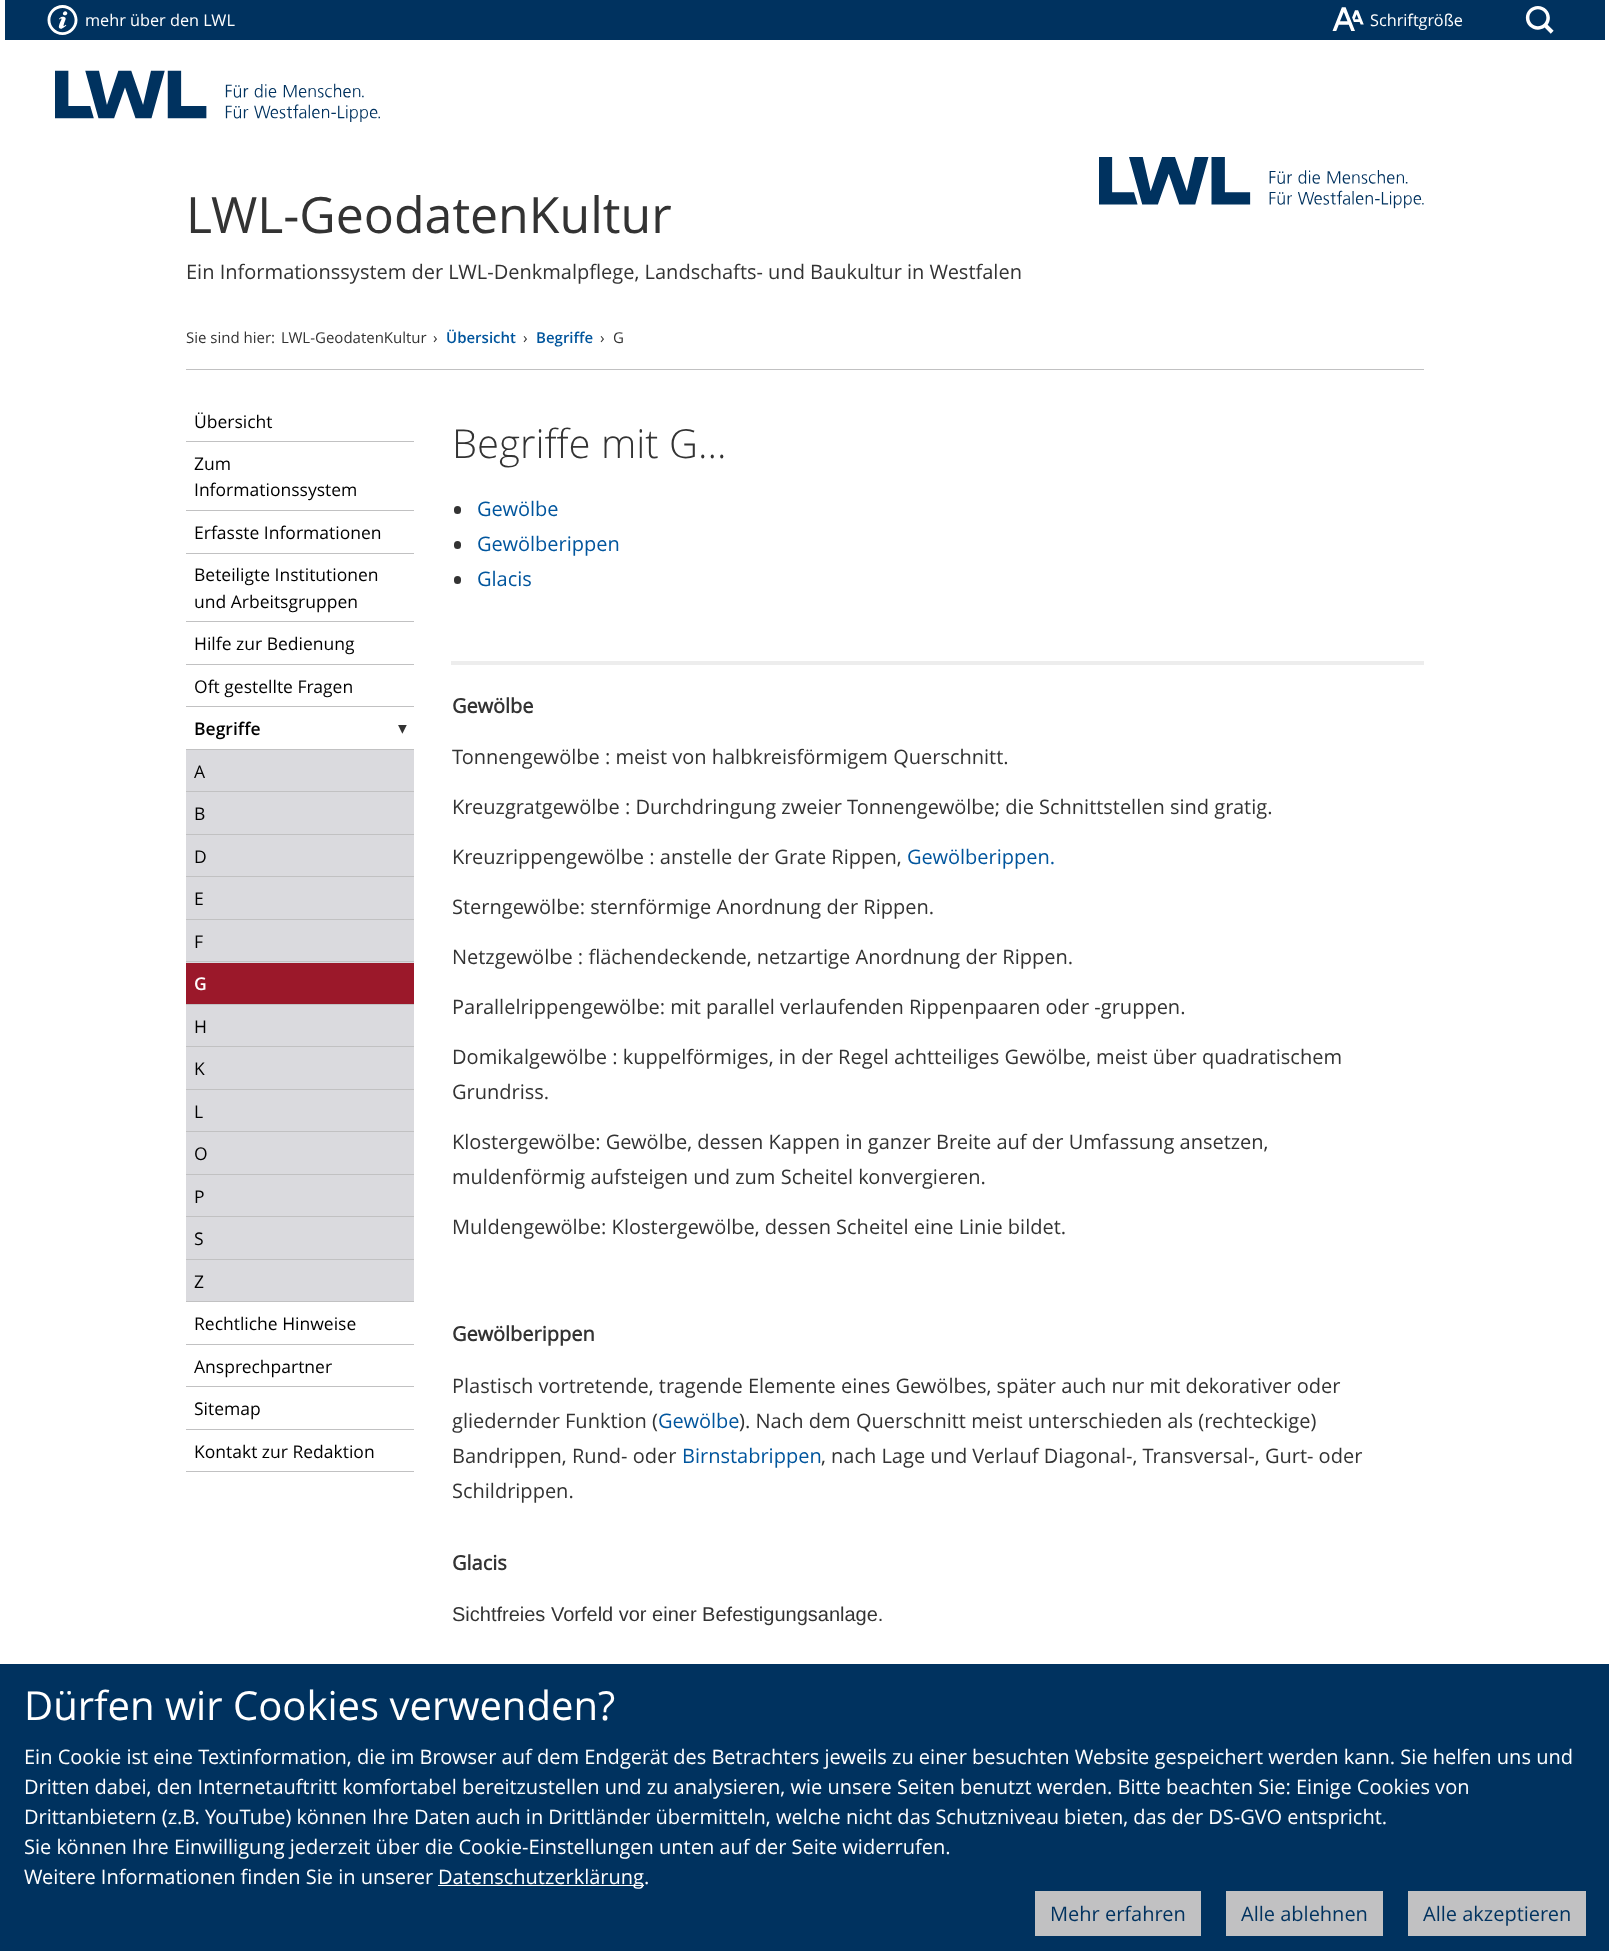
<svg xmlns="http://www.w3.org/2000/svg" width="1609" height="1951" viewBox="0 0 1609 1951">
  <rect width="100%" height="100%" fill="#ffffff"/>
  <rect x="5" y="0" width="1600" height="40" fill="#00325f"/>
  <image x="47" y="5" width="31" height="30" href="img1.png"/>
  <text x="85" y="26" font-family="Open Sans" font-size="16.25" fill="#ffffff">mehr über den LWL</text>
  <image x="1332" y="7" width="32" height="24" href="img2.png"/>
  <text x="1370" y="26" font-family="Open Sans" font-size="16.25" fill="#ffffff">Schriftgröße</text>
  <image x="1525" y="6" width="29" height="28" href="img3.png"/>
  <image x="55" y="70" width="325" height="52" href="img4.png"/>
  <image x="1099" y="157" width="325" height="52" href="img5.png"/>
  <text x="186" y="233" font-family="Open Sans" font-size="50" fill="#333333">LWL-GeodatenKultur</text>
  <text x="186" y="279" font-family="Open Sans" font-size="20" fill="#333333">Ein Informationssystem der LWL-Denkmalpflege, Landschafts- und Baukultur in Westfalen</text>
  <rect x="186" y="369" width="1238" height="1" fill="#c1c1c2"/>
  <text x="186" y="343" font-family="Open Sans" font-size="15" fill="#333333">Sie sind hier:</text>
  <text x="281" y="343" font-family="Open Sans" font-size="15" fill="#333333">LWL-GeodatenKultur</text>
  <text x="433" y="343" font-family="Open Sans" font-size="15" fill="#333333">›</text>
  <text x="446" y="343" font-family="Open Sans" font-size="15" font-weight="600" fill="#00559d">Übersicht</text>
  <text x="523" y="343" font-family="Open Sans" font-size="15" fill="#333333">›</text>
  <text x="536" y="343" font-family="Open Sans" font-size="15" font-weight="600" fill="#00559d">Begriffe</text>
  <text x="600" y="343" font-family="Open Sans" font-size="15" fill="#333333">›</text>
  <text x="613" y="343" font-family="Open Sans" font-size="15" fill="#333333">G</text>
  <rect x="186" y="1471" width="228" height="1" fill="#c1c1c2"/>
  <text x="194" y="428" font-family="Open Sans" font-size="17.5" fill="#000000">Übersicht</text>
  <rect x="186" y="441" width="228" height="1" fill="#c1c1c2"/>
  <text x="194" y="470" font-family="Open Sans" font-size="17.5" fill="#000000">Zum</text>
  <text x="194" y="496" font-family="Open Sans" font-size="17.5" fill="#000000">Informationssystem</text>
  <rect x="186" y="510" width="228" height="1" fill="#c1c1c2"/>
  <text x="194" y="539" font-family="Open Sans" font-size="17.5" fill="#000000">Erfasste Informationen</text>
  <rect x="186" y="553" width="228" height="1" fill="#c1c1c2"/>
  <text x="194" y="581" font-family="Open Sans" font-size="17.5" fill="#000000">Beteiligte Institutionen</text>
  <text x="194" y="608" font-family="Open Sans" font-size="17.5" fill="#000000">und Arbeitsgruppen</text>
  <rect x="186" y="621" width="228" height="1" fill="#c1c1c2"/>
  <text x="194" y="650" font-family="Open Sans" font-size="17.5" fill="#000000">Hilfe zur Bedienung</text>
  <rect x="186" y="664" width="228" height="1" fill="#c1c1c2"/>
  <text x="194" y="693" font-family="Open Sans" font-size="17.5" fill="#000000">Oft gestellte Fragen</text>
  <rect x="186" y="706" width="228" height="1" fill="#c1c1c2"/>
  <text x="194" y="735" font-family="Open Sans" font-size="17.5" font-weight="600" fill="#000000">Begriffe</text>
  <text x="398" y="734" font-family="DejaVu Sans" font-size="17.5" fill="#333333">▾</text>
  <rect x="186" y="750" width="228" height="551" fill="#dadade"/>
  <rect x="186" y="749" width="228" height="1" fill="#c1c1c2"/>
  <text x="194" y="778" font-family="Open Sans" font-size="17.5" fill="#000000">A</text>
  <rect x="186" y="791" width="228" height="1" fill="#c1c1c2"/>
  <text x="194" y="820" font-family="Open Sans" font-size="17.5" fill="#000000">B</text>
  <rect x="186" y="834" width="228" height="1" fill="#c1c1c2"/>
  <text x="194" y="863" font-family="Open Sans" font-size="17.5" fill="#000000">D</text>
  <rect x="186" y="876" width="228" height="1" fill="#c1c1c2"/>
  <text x="194" y="905" font-family="Open Sans" font-size="17.5" fill="#000000">E</text>
  <rect x="186" y="919" width="228" height="1" fill="#c1c1c2"/>
  <text x="194" y="948" font-family="Open Sans" font-size="17.5" fill="#000000">F</text>
  <rect x="186" y="961" width="228" height="1" fill="#c1c1c2"/>
  <rect x="186" y="963" width="228" height="41" fill="#9b182a"/>
  <text x="194" y="990" font-family="Open Sans" font-size="17.5" font-weight="600" fill="#ffffff">G</text>
  <rect x="186" y="1004" width="228" height="1" fill="#c1c1c2"/>
  <text x="194" y="1033" font-family="Open Sans" font-size="17.5" fill="#000000">H</text>
  <rect x="186" y="1046" width="228" height="1" fill="#c1c1c2"/>
  <text x="194" y="1075" font-family="Open Sans" font-size="17.5" fill="#000000">K</text>
  <rect x="186" y="1089" width="228" height="1" fill="#c1c1c2"/>
  <text x="194" y="1118" font-family="Open Sans" font-size="17.5" fill="#000000">L</text>
  <rect x="186" y="1131" width="228" height="1" fill="#c1c1c2"/>
  <text x="194" y="1160" font-family="Open Sans" font-size="17.5" fill="#000000">O</text>
  <rect x="186" y="1174" width="228" height="1" fill="#c1c1c2"/>
  <text x="194" y="1203" font-family="Open Sans" font-size="17.5" fill="#000000">P</text>
  <rect x="186" y="1216" width="228" height="1" fill="#c1c1c2"/>
  <text x="194" y="1245" font-family="Open Sans" font-size="17.5" fill="#000000">S</text>
  <rect x="186" y="1259" width="228" height="1" fill="#c1c1c2"/>
  <text x="194" y="1288" font-family="Open Sans" font-size="17.5" fill="#000000">Z</text>
  <rect x="186" y="1301" width="228" height="1" fill="#c1c1c2"/>
  <text x="194" y="1330" font-family="Open Sans" font-size="17.5" fill="#000000">Rechtliche Hinweise</text>
  <rect x="186" y="1344" width="228" height="1" fill="#c1c1c2"/>
  <text x="194" y="1373" font-family="Open Sans" font-size="17.5" fill="#000000">Ansprechpartner</text>
  <rect x="186" y="1386" width="228" height="1" fill="#c1c1c2"/>
  <text x="194" y="1415" font-family="Open Sans" font-size="17.5" fill="#000000">Sitemap</text>
  <rect x="186" y="1429" width="228" height="1" fill="#c1c1c2"/>
  <text x="194" y="1458" font-family="Open Sans" font-size="17.5" fill="#000000">Kontakt zur Redaktion</text>
  <text x="452" y="458" font-family="Open Sans" font-size="40" font-weight="300" fill="#333333">Begriffe mit G...</text>
  <rect x="454" y="506" width="7" height="8" rx="3.5" fill="#333333"/>
  <text x="477" y="516" font-family="Open Sans" font-size="20" fill="#00559d">Gewölbe</text>
  <rect x="454" y="541" width="7" height="8" rx="3.5" fill="#333333"/>
  <text x="477" y="551" font-family="Open Sans" font-size="20" fill="#00559d">Gewölberippen</text>
  <rect x="454" y="576" width="7" height="8" rx="3.5" fill="#333333"/>
  <text x="477" y="586" font-family="Open Sans" font-size="20" fill="#00559d">Glacis</text>
  <rect x="451" y="661" width="973" height="4" fill="#ededed"/>
  <text x="452" y="713" font-family="Open Sans" font-size="20" font-weight="bold" fill="#333333">Gewölbe</text>
  <text x="452" y="764" font-family="Open Sans" font-size="20" fill="#333333">Tonnengewölbe : meist von halbkreisförmigem Querschnitt.</text>
  <text x="452" y="814" font-family="Open Sans" font-size="20" fill="#333333">Kreuzgratgewölbe : Durchdringung zweier Tonnengewölbe; die Schnittstellen sind gratig.</text>
  <text x="452" y="864" font-family="Open Sans" font-size="20" fill="#333333">Kreuzrippengewölbe : anstelle der Grate Rippen,</text>
  <text x="907" y="864" font-family="Open Sans" font-size="20" fill="#00559d">Gewölberippen.</text>
  <text x="452" y="914" font-family="Open Sans" font-size="20" fill="#333333">Sterngewölbe: sternförmige Anordnung der Rippen.</text>
  <text x="452" y="964" font-family="Open Sans" font-size="20" fill="#333333">Netzgewölbe : flächendeckende, netzartige Anordnung der Rippen.</text>
  <text x="452" y="1014" font-family="Open Sans" font-size="20" fill="#333333">Parallelrippengewölbe: mit parallel verlaufenden Rippenpaaren oder -gruppen.</text>
  <text x="452" y="1064" font-family="Open Sans" font-size="20" fill="#333333">Domikalgewölbe : kuppelförmiges, in der Regel achtteiliges Gewölbe, meist über quadratischem</text>
  <text x="452" y="1099" font-family="Open Sans" font-size="20" fill="#333333">Grundriss.</text>
  <text x="452" y="1149" font-family="Open Sans" font-size="20" fill="#333333">Klostergewölbe: Gewölbe, dessen Kappen in ganzer Breite auf der Umfassung ansetzen,</text>
  <text x="452" y="1184" font-family="Open Sans" font-size="20" fill="#333333">muldenförmig aufsteigen und zum Scheitel konvergieren.</text>
  <text x="452" y="1234" font-family="Open Sans" font-size="20" fill="#333333">Muldengewölbe: Klostergewölbe, dessen Scheitel eine Linie bildet.</text>
  <text x="452" y="1341" font-family="Open Sans" font-size="20" font-weight="bold" fill="#333333">Gewölberippen</text>
  <text x="452" y="1393" font-family="Open Sans" font-size="20" fill="#333333">Plastisch vortretende, tragende Elemente eines Gewölbes, später auch nur mit dekorativer oder</text>
  <text x="452" y="1428" font-family="Open Sans" font-size="20" fill="#333333">gliedernder Funktion (</text>
  <text x="658" y="1428" font-family="Open Sans" font-size="20" fill="#00559d">Gewölbe</text>
  <text x="739" y="1428" font-family="Open Sans" font-size="20" fill="#333333">). Nach dem Querschnitt meist unterschieden als (rechteckige)</text>
  <text x="452" y="1463" font-family="Open Sans" font-size="20" fill="#333333">Bandrippen, Rund- oder</text>
  <text x="682" y="1463" font-family="Open Sans" font-size="20" fill="#00559d">Birnstabrippen</text>
  <text x="821" y="1463" font-family="Open Sans" font-size="20" fill="#333333">, nach Lage und Verlauf Diagonal-, Transversal-, Gurt- oder</text>
  <text x="452" y="1498" font-family="Open Sans" font-size="20" fill="#333333">Schildrippen.</text>
  <text x="452" y="1570" font-family="Open Sans" font-size="20" font-weight="bold" fill="#333333">Glacis</text>
  <text x="452" y="1621" font-family="Liberation Sans" font-size="20" fill="#333333">Sichtfreies Vorfeld vor einer Befestigungsanlage.</text>
  <rect x="0" y="1664" width="1609" height="287" fill="#00325f"/>
  <text x="24" y="1720" font-family="Open Sans" font-size="40" fill="#ffffff">Dürfen wir Cookies verwenden?</text>
  <text x="24" y="1764" font-family="Open Sans" font-size="20" fill="#ffffff">Ein Cookie ist eine Textinformation, die im Browser auf dem Endgerät des Betrachters jeweils zu einer besuchten Website gespeichert werden kann. Sie helfen uns und</text>
  <text x="24" y="1794" font-family="Open Sans" font-size="20" fill="#ffffff">Dritten dabei, den Internetauftritt komfortabel bereitzustellen und zu analysieren, wie unsere Seiten benutzt werden. Bitte beachten Sie: Einige Cookies von</text>
  <text x="24" y="1824" font-family="Open Sans" font-size="20" fill="#ffffff">Drittanbietern (z.B. YouTube) können Ihre Daten auch in Drittländer übermitteln, welche nicht das Schutzniveau bieten, das der DS-GVO entspricht.</text>
  <text x="24" y="1854" font-family="Open Sans" font-size="20" fill="#ffffff">Sie können Ihre Einwilligung jederzeit über die Cookie-Einstellungen unten auf der Seite widerrufen.</text>
  <text x="24" y="1884" font-family="Open Sans" font-size="20" fill="#ffffff">Weitere Informationen finden Sie in unserer</text>
  <rect x="438" y="1885" width="206" height="1" fill="#ffffff"/>
  <text x="438" y="1884" font-family="Open Sans" font-size="20" fill="#ffffff">Datenschutzerklärung.</text>
  <rect x="1035" y="1891" width="166" height="45" fill="#c1c1c2"/>
  <text x="1050" y="1921" font-family="Open Sans" font-size="20" fill="#00325f">Mehr erfahren</text>
  <rect x="1226" y="1891" width="157" height="45" fill="#c1c1c2"/>
  <text x="1241" y="1921" font-family="Open Sans" font-size="20" fill="#00325f">Alle ablehnen</text>
  <rect x="1408" y="1891" width="178" height="45" fill="#c1c1c2"/>
  <text x="1423" y="1921" font-family="Open Sans" font-size="20" fill="#00325f">Alle akzeptieren</text>
</svg>
